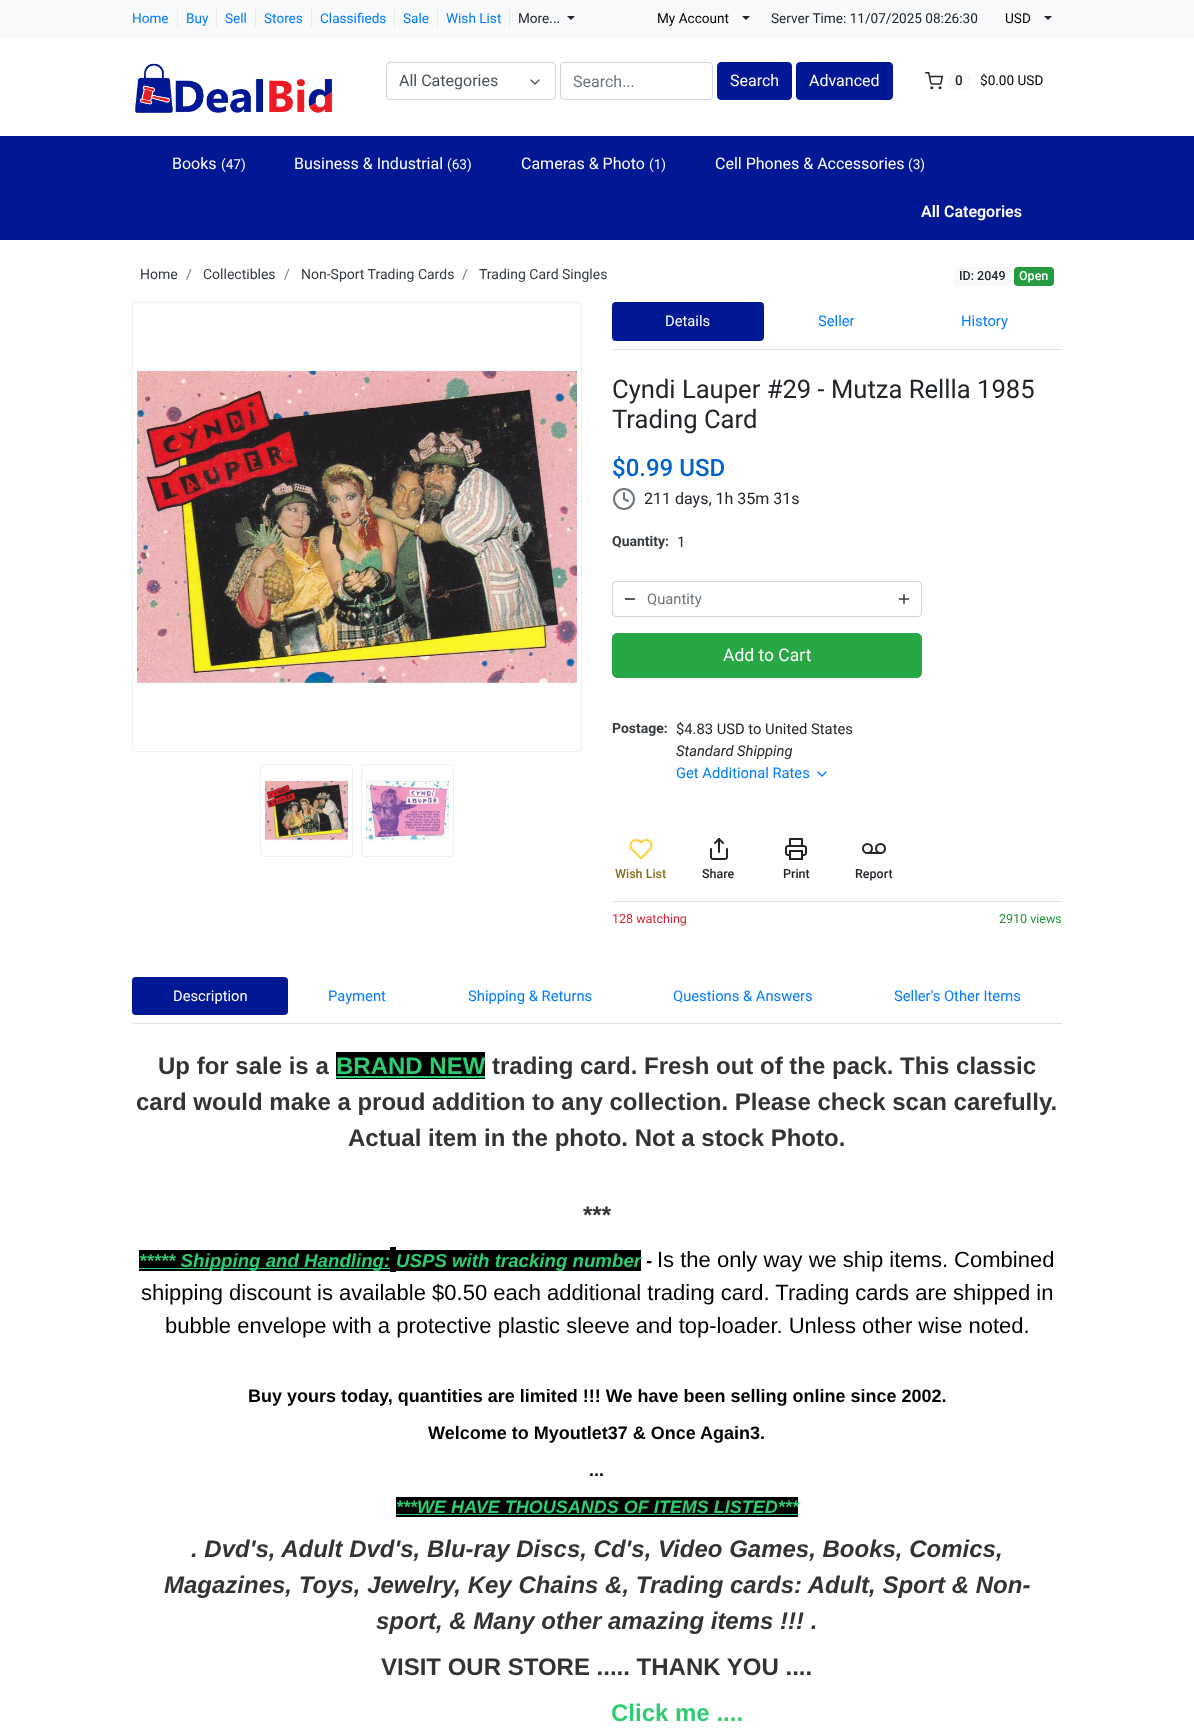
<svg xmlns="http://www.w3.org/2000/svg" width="1194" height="1731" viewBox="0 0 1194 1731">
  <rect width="100%" height="100%" fill="#ffffff"/>
  <rect x="0" y="0" width="1194" height="38" fill="#f8f9fa"/>
  <text x="132" y="23" font-family="Roboto" font-size="13.6" fill="#007bff">Home</text>
  <path d="M177.5 8V28" fill="none" stroke="#e0e0e0" stroke-dasharray="1 1"/>
  <text x="186" y="23" font-family="Roboto" font-size="13.6" fill="#007bff">Buy</text>
  <path d="M216.5 8V28" fill="none" stroke="#e0e0e0" stroke-dasharray="1 1"/>
  <text x="225" y="23" font-family="Roboto" font-size="13.6" fill="#007bff">Sell</text>
  <path d="M255.5 8V28" fill="none" stroke="#e0e0e0" stroke-dasharray="1 1"/>
  <text x="264" y="23" font-family="Roboto" font-size="13.6" fill="#007bff">Stores</text>
  <path d="M311.5 8V28" fill="none" stroke="#e0e0e0" stroke-dasharray="1 1"/>
  <text x="320" y="23" font-family="Roboto" font-size="13.6" fill="#007bff">Classifieds</text>
  <path d="M394.5 8V28" fill="none" stroke="#e0e0e0" stroke-dasharray="1 1"/>
  <text x="403" y="23" font-family="Roboto" font-size="13.6" fill="#007bff">Sale</text>
  <path d="M437.5 8V28" fill="none" stroke="#e0e0e0" stroke-dasharray="1 1"/>
  <text x="446" y="23" font-family="Roboto" font-size="13.6" fill="#007bff">Wish List</text>
  <path d="M509.5 8V28" fill="none" stroke="#e0e0e0" stroke-dasharray="1 1"/>
  <text x="518" y="23" font-family="Roboto" font-size="13.6" fill="#212529">More...</text>
  <path d="M567 16H575L571 20Z" fill="#212529"/>
  <text x="657" y="23" font-family="Roboto" font-size="13.6" fill="#000000">My Account</text>
  <path d="M742 16H750L746 20Z" fill="#212529"/>
  <text x="771" y="23" font-family="Roboto" font-size="13.6" fill="#212529">Server Time: 11/07/2025 08:26:30</text>
  <text x="1005" y="23" font-family="Roboto" font-size="13.6" fill="#000000">USD</text>
  <path d="M1044 16H1052L1048 20Z" fill="#212529"/>
  <image x="135" y="63" width="197" height="50" href="img1.png"/>
  <rect x="386.5" y="62.5" width="169" height="37" rx="3.5" fill="none" stroke="#ced4da"/>
  <text x="399" y="86" font-family="Roboto" font-size="16" fill="#495057">All Categories</text>
  <path d="M531 80L535 84L539 80" fill="none" stroke="#495057" stroke-width="1.3" stroke-linecap="round" stroke-linejoin="round"/>
  <rect x="560.5" y="62.5" width="152" height="37" rx="3.5" fill="none" stroke="#ced4da"/>
  <text x="573" y="87" font-family="Roboto" font-size="16" fill="#6c757d">Search...</text>
  <rect x="717.5" y="62.5" width="74" height="37" rx="3.5" fill="#001894" stroke="#001894"/>
  <text x="730" y="86" font-family="Roboto" font-size="16" fill="#ffffff">Search</text>
  <rect x="796.5" y="62.5" width="96" height="37" rx="3.5" fill="#001894" stroke="#001894"/>
  <text x="809" y="86" font-family="Roboto" font-size="16" fill="#ffffff">Advanced</text>
  <image x="925" y="72" width="18" height="18" href="img2.png"/>
  <rect x="947" y="71" width="24" height="20" rx="10" fill="#f8f9fa"/>
  <text x="955" y="85" font-family="Roboto" font-size="13.6" font-weight="500" fill="#212529">0</text>
  <text x="980" y="85" font-family="Roboto" font-size="13.6" fill="#000000">$0.00 USD</text>
  <rect x="0" y="136" width="1194" height="104" fill="#001894"/>
  <text x="172" y="169" font-family="Roboto" font-size="16" fill="#ffffff">Books</text>
  <text x="221" y="169" font-family="Roboto" font-size="13.6" fill="#ffffff">(47)</text>
  <rect x="269" y="140" width="1" height="48" fill="#00178d"/>
  <text x="294" y="169" font-family="Roboto" font-size="16" fill="#ffffff">Business &amp; Industrial</text>
  <text x="447" y="169" font-family="Roboto" font-size="13.6" fill="#ffffff">(63)</text>
  <rect x="496" y="140" width="1" height="48" fill="#00178d"/>
  <text x="521" y="169" font-family="Roboto" font-size="16" fill="#ffffff">Cameras &amp; Photo</text>
  <text x="649" y="169" font-family="Roboto" font-size="13.6" fill="#ffffff">(1)</text>
  <rect x="690" y="140" width="1" height="48" fill="#00178d"/>
  <text x="715" y="169" font-family="Roboto" font-size="16" fill="#ffffff">Cell Phones &amp; Accessories</text>
  <text x="908" y="169" font-family="Roboto" font-size="13.6" fill="#ffffff">(3)</text>
  <rect x="896" y="188" width="1" height="48" fill="#00178d"/>
  <text x="921" y="217" font-family="Roboto" font-size="16" font-weight="600" fill="#ffffff">All Categories</text>
  <text x="140" y="279" font-family="Roboto" font-size="14" fill="#343a40">Home</text>
  <text x="186" y="279" font-family="Roboto" font-size="14" fill="#6c757d">/</text>
  <text x="203" y="279" font-family="Roboto" font-size="14" fill="#343a40">Collectibles</text>
  <text x="284" y="279" font-family="Roboto" font-size="14" fill="#6c757d">/</text>
  <text x="301" y="279" font-family="Roboto" font-size="14" fill="#343a40">Non-Sport Trading Cards</text>
  <text x="462" y="279" font-family="Roboto" font-size="14" fill="#6c757d">/</text>
  <text x="479" y="279" font-family="Roboto" font-size="14" fill="#343a40">Trading Card Singles</text>
  <rect x="954" y="267" width="57" height="19" rx="4" fill="#f8f9fa"/>
  <text x="959" y="280" font-family="Roboto" font-size="12.5" font-weight="500" fill="#212529">ID: 2049</text>
  <rect x="1014" y="267" width="40" height="19" rx="4" fill="#259b40"/>
  <text x="1019" y="280" font-family="Roboto" font-size="12.5" font-weight="500" fill="#ffffff">Open</text>
  <rect x="132.5" y="302.5" width="449" height="449" rx="3.5" fill="none" stroke="#eeeff0"/>
  <image x="137" y="368" width="440" height="318" href="img3.png"/>
  <rect x="260.5" y="764.5" width="92" height="92" rx="3.5" fill="none" stroke="#eeeff0"/>
  <image x="265" y="779" width="83" height="65" href="img4.png"/>
  <rect x="361.5" y="764.5" width="92" height="92" rx="3.5" fill="none" stroke="#eeeff0"/>
  <image x="366" y="779" width="83" height="64" href="img5.png"/>
  <rect x="612" y="349" width="450" height="1" fill="#dee2e6"/>
  <rect x="612" y="302" width="152" height="39" rx="4" fill="#001894"/>
  <text x="665" y="326" font-family="Roboto" font-size="14.75" fill="#ffffff">Details</text>
  <text x="818" y="326" font-family="Roboto" font-size="14.75" fill="#007bff">Seller</text>
  <text x="961" y="326" font-family="Roboto" font-size="14.75" fill="#007bff">History</text>
  <text x="612" y="398" font-family="Roboto" font-size="25.6" fill="#212529">Cyndi Lauper #29 - Mutza Rellla 1985</text>
  <text x="612" y="428" font-family="Roboto" font-size="25.6" fill="#212529">Trading Card</text>
  <text x="612" y="476" font-family="Roboto" font-size="24" font-weight="500" fill="#0062cc">$0.99 USD</text>
  <circle cx="624" cy="499" r="10" fill="none" stroke="#6c757d" stroke-width="2"/>
  <path d="M624 493V499L628 501" fill="none" stroke="#6c757d" stroke-width="2" stroke-linecap="round" stroke-linejoin="round"/>
  <text x="644" y="504" font-family="Roboto" font-size="16" fill="#212529">211 days, 1h 35m 31s</text>
  <text x="612" y="546" font-family="Roboto" font-size="14" font-weight="bold" fill="#343a40">Quantity:</text>
  <text x="677" y="547" font-family="Roboto" font-size="14.75" fill="#212529">1</text>
  <rect x="612.5" y="581.5" width="309" height="35" rx="3.5" fill="none" stroke="#ced4da"/>
  <path d="M625.5 599H634.5" fill="none" stroke="#212529" stroke-width="1.3" stroke-linecap="round" stroke-linejoin="round"/>
  <text x="647" y="604" font-family="Roboto" font-size="14.75" fill="#6c757d">Quantity</text>
  <image x="898" y="593" width="12" height="12" href="img6.png"/>
  <rect x="612.5" y="633.5" width="309" height="44" rx="4.5" fill="#28a745" stroke="#28a745"/>
  <text x="723" y="661" font-family="Roboto" font-size="17.5" fill="#ffffff">Add to Cart</text>
  <text x="612" y="733" font-family="Roboto" font-size="14" font-weight="bold" fill="#343a40">Postage:</text>
  <text x="676" y="734" font-family="Roboto" font-size="14.75" fill="#212529">$4.83 USD to United States</text>
  <text x="676" y="756" font-family="Roboto" font-size="14.75" font-style="italic" fill="#212529">Standard Shipping</text>
  <text x="676" y="778" font-family="Roboto" font-size="14.75" fill="#007bff">Get Additional Rates</text>
  <path d="M818 772L822 776L826 772" fill="none" stroke="#007bff" stroke-width="1.3" stroke-linecap="round" stroke-linejoin="round"/>
  <image x="629" y="839" width="24" height="21" href="img7.png"/>
  <text x="615" y="878" font-family="Roboto" font-size="12.5" font-weight="500" fill="#846e20">Wish List</text>
  <image x="710" y="838" width="18" height="22" href="img8.png"/>
  <text x="702" y="878" font-family="Roboto" font-size="12.5" font-weight="500" fill="#212529">Share</text>
  <image x="785" y="838" width="22" height="22" href="img9.png"/>
  <text x="783" y="878" font-family="Roboto" font-size="12.5" font-weight="500" fill="#212529">Print</text>
  <circle cx="867.5" cy="848.5" r="4.5" fill="none" stroke="#212529" stroke-width="2"/>
  <circle cx="880.5" cy="848.5" r="4.5" fill="none" stroke="#212529" stroke-width="2"/>
  <path d="M867.5 853H880.5" fill="none" stroke="#212529" stroke-width="2" stroke-linecap="round" stroke-linejoin="round"/>
  <text x="855" y="878" font-family="Roboto" font-size="12.5" font-weight="500" fill="#212529">Report</text>
  <rect x="612" y="901" width="450" height="1" fill="#dee2e6"/>
  <text x="612" y="923" font-family="Roboto" font-size="12.5" fill="#d32535">128 watching</text>
  <text x="999" y="923" font-family="Roboto" font-size="12.5" fill="#23923d">2910 views</text>
  <rect x="132" y="1023" width="930" height="1" fill="#dee2e6"/>
  <rect x="132" y="977" width="156" height="38" rx="4" fill="#001894"/>
  <text x="173" y="1001" font-family="Roboto" font-size="14.75" fill="#ffffff">Description</text>
  <text x="328" y="1001" font-family="Roboto" font-size="14.75" fill="#007bff">Payment</text>
  <text x="468" y="1001" font-family="Roboto" font-size="14.75" fill="#007bff">Shipping &amp; Returns</text>
  <text x="673" y="1001" font-family="Roboto" font-size="14.75" fill="#007bff">Questions &amp; Answers</text>
  <text x="894" y="1001" font-family="Roboto" font-size="14.75" fill="#007bff">Seller's Other Items</text>
  <text x="158" y="1074" font-family="Liberation Sans" font-size="24" font-weight="bold" fill="#333333">Up for sale is a</text>
  <rect x="336" y="1052" width="149" height="27" fill="#000000"/>
  <text x="336" y="1074" font-family="Liberation Sans" font-size="24" font-weight="bold" fill="#2ecc71">BRAND NEW</text>
  <rect x="336" y="1076" width="149" height="2" fill="#2ecc71"/>
  <text x="492" y="1074" font-family="Liberation Sans" font-size="24" font-weight="bold" fill="#333333">trading card. Fresh out of the pack. This classic</text>
  <text x="136" y="1110" font-family="Liberation Sans" font-size="24" font-weight="bold" fill="#333333">card would make a proud addition to any collection. Please check scan carefully.</text>
  <text x="348" y="1146" font-family="Liberation Sans" font-size="24" font-weight="bold" fill="#333333">Actual item in the photo. Not a stock Photo.</text>
  <text x="583" y="1223" font-family="Liberation Sans" font-size="24" font-weight="bold" fill="#333333">***</text>
  <rect x="139" y="1250" width="251" height="21" fill="#000000"/>
  <rect x="139" y="1268" width="251" height="1" fill="#2ecc71"/>
  <text x="139" y="1267" font-family="Liberation Sans" font-size="18.7" font-weight="bold" font-style="italic" fill="#2ecc71">***** Shipping and Handling:</text>
  <rect x="390" y="1247" width="6" height="25" fill="#000000"/>
  <rect x="396" y="1250" width="245" height="21" fill="#000000"/>
  <text x="396" y="1267" font-family="Liberation Sans" font-size="18.7" font-weight="bold" font-style="italic" fill="#2ecc71">USPS with tracking number</text>
  <text x="646" y="1267" font-family="Liberation Sans" font-size="18.7" font-weight="bold" font-style="italic" fill="#000000">-</text>
  <text x="657" y="1267" font-family="Liberation Sans" font-size="22" fill="#000000">Is the only way we ship items. Combined</text>
  <text x="141" y="1300" font-family="Liberation Sans" font-size="22" fill="#000000">shipping discount is available $0.50 each additional trading card. Trading cards are shipped in</text>
  <text x="165" y="1333" font-family="Liberation Sans" font-size="22" fill="#000000">bubble envelope with a protective plastic sleeve and top-loader. Unless other wise noted.</text>
  <text x="248" y="1402" font-family="Liberation Sans" font-size="18" font-weight="bold" fill="#000000">Buy yours today, quantities are limited !!! We have been selling online since 2002.</text>
  <text x="428" y="1439" font-family="Liberation Sans" font-size="18" font-weight="bold" fill="#000000">Welcome to Myoutlet37 &amp; Once Again3.</text>
  <text x="589" y="1476" font-family="Liberation Sans" font-size="18" font-weight="bold" fill="#000000">...</text>
  <rect x="396" y="1497" width="402" height="20" fill="#000000"/>
  <text x="396" y="1513" font-family="Liberation Sans" font-size="18" font-weight="bold" font-style="italic" fill="#2ecc71">***WE HAVE THOUSANDS OF ITEMS LISTED***</text>
  <rect x="396" y="1514" width="402" height="1" fill="#2ecc71"/>
  <text x="191" y="1557" font-family="Liberation Sans" font-size="24" font-weight="bold" font-style="italic" fill="#333333">. Dvd's, Adult Dvd's, Blu-ray Discs, Cd's, Video Games, Books, Comics,</text>
  <text x="164" y="1593" font-family="Liberation Sans" font-size="24" font-weight="bold" font-style="italic" fill="#333333">Magazines, Toys, Jewelry, Key Chains &amp;, Trading cards: Adult, Sport &amp; Non-</text>
  <text x="376" y="1629" font-family="Liberation Sans" font-size="24" font-weight="bold" font-style="italic" fill="#333333">sport, &amp; Many other amazing items !!! .</text>
  <text x="381" y="1675" font-family="Liberation Sans" font-size="24" font-weight="bold" fill="#333333">VISIT OUR STORE ..... THANK YOU ....</text>
  <text x="611" y="1721" font-family="Liberation Sans" font-size="24" font-weight="bold" fill="#2ecc71">Click me ....</text>
</svg>
